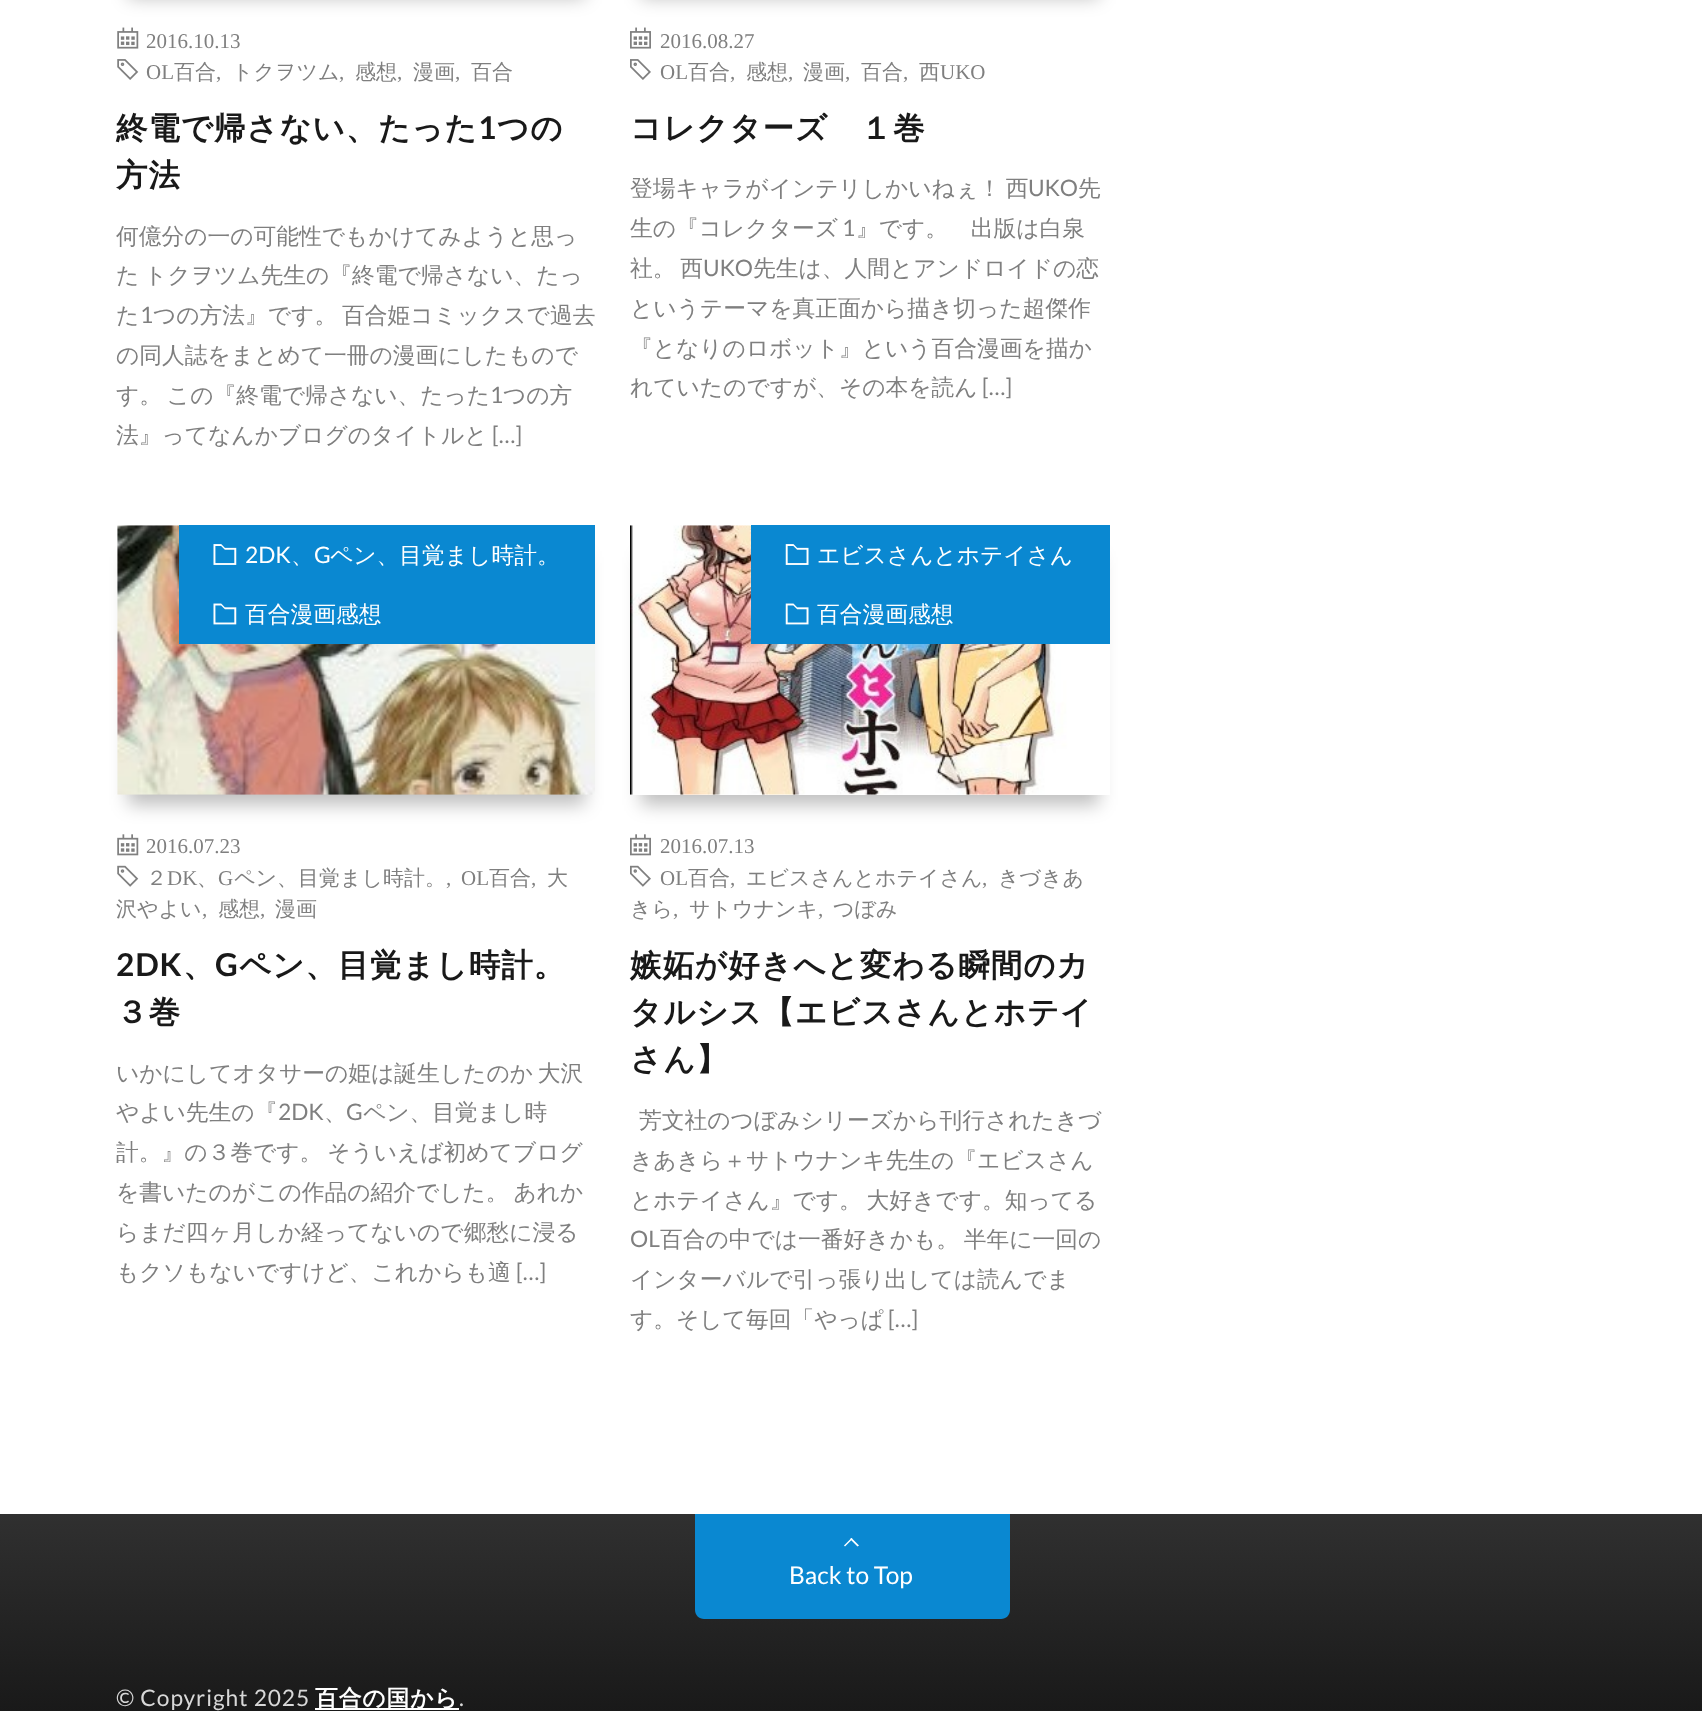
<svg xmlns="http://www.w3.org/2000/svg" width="1702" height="1711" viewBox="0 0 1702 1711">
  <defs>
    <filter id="blur1" x="-50%" y="-200%" width="200%" height="500%"><feGaussianBlur stdDeviation="9"/></filter>
    <clipPath id="clip1"><path d="M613 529H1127V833H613ZM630 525H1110V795H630Z" clip-rule="evenodd"/></clipPath>
    <linearGradient id="g1" gradientUnits="userSpaceOnUse" x1="851" y1="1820" x2="851" y2="1514"><stop offset="0" stop-color="#191919"/><stop offset="0.35" stop-color="#191919"/><stop offset="1" stop-color="#303030"/></linearGradient>
  </defs>
  <rect width="100%" height="100%" fill="#ffffff"/>
  <rect x="128" y="-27" width="457" height="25" fill="#000000" fill-opacity="0.25" filter="url(#blur1)"/>
  <image x="117" y="27" width="22" height="22" href="img1.png"/>
  <text x="146" y="48" font-family="Liberation Serif" font-size="21" fill="#7f7f7f">2016.10.13</text>
  <image x="117" y="59" width="22" height="21" href="img2.png"/>
  <text x="146" y="79" font-family="Liberation Serif" font-size="21" fill="#7f7f7f">OL</text>
  <text x="174" y="79" font-family="WenQuanYi Zen Hei" font-size="21" font-weight="500" fill="#7f7f7f">百合</text>
  <text x="216" y="79" font-family="Liberation Serif" font-size="21" fill="#7f7f7f">,</text>
  <text x="232" y="79" font-family="WenQuanYi Zen Hei" font-size="21" font-weight="500" fill="#7f7f7f">トクヲツム</text>
  <text x="339" y="79" font-family="Liberation Serif" font-size="21" fill="#7f7f7f">,</text>
  <text x="355" y="79" font-family="WenQuanYi Zen Hei" font-size="21" font-weight="500" fill="#7f7f7f">感想</text>
  <text x="397" y="79" font-family="Liberation Serif" font-size="21" fill="#7f7f7f">,</text>
  <text x="413" y="79" font-family="WenQuanYi Zen Hei" font-size="21" font-weight="500" fill="#7f7f7f">漫画</text>
  <text x="455" y="79" font-family="Liberation Serif" font-size="21" fill="#7f7f7f">,</text>
  <text x="471" y="79" font-family="WenQuanYi Zen Hei" font-size="21" font-weight="500" fill="#7f7f7f">百合</text>
  <text x="116" y="139" font-family="WenQuanYi Zen Hei" font-size="31.5" font-weight="bold" letter-spacing="0.9" fill="#191919">終電で帰さない、たった</text>
  <text x="478" y="139" font-family="Lato" font-size="31.5" font-weight="bold" letter-spacing="0.9" fill="#191919">1</text>
  <text x="497" y="139" font-family="WenQuanYi Zen Hei" font-size="31.5" font-weight="bold" letter-spacing="0.9" fill="#191919">つの</text>
  <text x="116" y="186" font-family="WenQuanYi Zen Hei" font-size="31.5" font-weight="bold" letter-spacing="0.9" fill="#191919">方法</text>
  <text x="116" y="244" font-family="WenQuanYi Zen Hei" font-size="22.75" font-weight="500" fill="#7f7f7f">何億分の一の可能性でもかけてみようと思っ</text>
  <text x="116" y="283" word-spacing="-2" font-family="WenQuanYi Zen Hei" font-size="22.75" font-weight="500" fill="#7f7f7f">た トクヲツム先生の『終電で帰さない、たっ</text>
  <text x="116" y="323" font-family="WenQuanYi Zen Hei" font-size="22.75" font-weight="500" fill="#7f7f7f">た</text>
  <text x="140" y="323" font-family="Lato" font-size="22.75" fill="#7f7f7f">1</text>
  <text x="153" y="323" word-spacing="-2" font-family="WenQuanYi Zen Hei" font-size="22.75" font-weight="500" fill="#7f7f7f">つの方法』です。 百合姫コミックスで過去</text>
  <text x="116" y="363" font-family="WenQuanYi Zen Hei" font-size="22.75" font-weight="500" fill="#7f7f7f">の同人誌をまとめて一冊の漫画にしたもので</text>
  <text x="116" y="403" word-spacing="-2" font-family="WenQuanYi Zen Hei" font-size="22.75" font-weight="500" fill="#7f7f7f">す。 この『終電で帰さない、たった</text>
  <text x="490" y="403" font-family="Lato" font-size="22.75" fill="#7f7f7f">1</text>
  <text x="503" y="403" font-family="WenQuanYi Zen Hei" font-size="22.75" font-weight="500" fill="#7f7f7f">つの方</text>
  <text x="116" y="443" font-family="WenQuanYi Zen Hei" font-size="22.75" font-weight="500" fill="#7f7f7f">法』ってなんかブログのタイトルと</text>
  <text x="492" y="443" font-family="Lato" font-size="22.75" fill="#7f7f7f">[…]</text>
  <rect x="641" y="-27" width="458" height="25" fill="#000000" fill-opacity="0.25" filter="url(#blur1)"/>
  <image x="630" y="27" width="21" height="22" href="img3.png"/>
  <text x="660" y="48" font-family="Liberation Serif" font-size="21" fill="#7f7f7f">2016.08.27</text>
  <image x="630" y="59" width="21" height="21" href="img4.png"/>
  <text x="660" y="79" font-family="Liberation Serif" font-size="21" fill="#7f7f7f">OL</text>
  <text x="688" y="79" font-family="WenQuanYi Zen Hei" font-size="21" font-weight="500" fill="#7f7f7f">百合</text>
  <text x="730" y="79" font-family="Liberation Serif" font-size="21" fill="#7f7f7f">,</text>
  <text x="746" y="79" font-family="WenQuanYi Zen Hei" font-size="21" font-weight="500" fill="#7f7f7f">感想</text>
  <text x="788" y="79" font-family="Liberation Serif" font-size="21" fill="#7f7f7f">,</text>
  <text x="803" y="79" font-family="WenQuanYi Zen Hei" font-size="21" font-weight="500" fill="#7f7f7f">漫画</text>
  <text x="845" y="79" font-family="Liberation Serif" font-size="21" fill="#7f7f7f">,</text>
  <text x="861" y="79" font-family="WenQuanYi Zen Hei" font-size="21" font-weight="500" fill="#7f7f7f">百合</text>
  <text x="903" y="79" font-family="Liberation Serif" font-size="21" fill="#7f7f7f">,</text>
  <text x="919" y="79" font-family="WenQuanYi Zen Hei" font-size="21" font-weight="500" fill="#7f7f7f">西</text>
  <text x="940" y="79" font-family="Liberation Serif" font-size="21" fill="#7f7f7f">UKO</text>
  <text x="630" y="139" font-family="WenQuanYi Zen Hei" font-size="31.5" font-weight="bold" letter-spacing="0.9" fill="#191919">コレクターズ　１巻</text>
  <text x="630" y="196" word-spacing="-2" font-family="WenQuanYi Zen Hei" font-size="22.75" font-weight="500" fill="#7f7f7f">登場キャラがインテリしかいねぇ！ 西</text>
  <text x="1028" y="196" font-family="Lato" font-size="22.75" fill="#7f7f7f">UKO</text>
  <text x="1078" y="196" font-family="WenQuanYi Zen Hei" font-size="22.75" font-weight="500" fill="#7f7f7f">先</text>
  <text x="630" y="236" font-family="WenQuanYi Zen Hei" font-size="22.75" font-weight="500" fill="#7f7f7f">生の『コレクターズ</text>
  <text x="842" y="236" font-family="Lato" font-size="22.75" fill="#7f7f7f">1</text>
  <text x="856" y="236" font-family="WenQuanYi Zen Hei" font-size="22.75" font-weight="500" fill="#7f7f7f">』です。　出版は白泉</text>
  <text x="630" y="276" word-spacing="-2" font-family="WenQuanYi Zen Hei" font-size="22.75" font-weight="500" fill="#7f7f7f">社。 西</text>
  <text x="703" y="276" font-family="Lato" font-size="22.75" fill="#7f7f7f">UKO</text>
  <text x="753" y="276" font-family="WenQuanYi Zen Hei" font-size="22.75" font-weight="500" fill="#7f7f7f">先生は、人間とアンドロイドの恋</text>
  <text x="630" y="316" font-family="WenQuanYi Zen Hei" font-size="22.75" font-weight="500" fill="#7f7f7f">というテーマを真正面から描き切った超傑作</text>
  <text x="630" y="356" font-family="WenQuanYi Zen Hei" font-size="22.75" font-weight="500" fill="#7f7f7f">『となりのロボット』という百合漫画を描か</text>
  <text x="630" y="395" font-family="WenQuanYi Zen Hei" font-size="22.75" font-weight="500" fill="#7f7f7f">れていたのですが、その本を読ん</text>
  <text x="982" y="395" font-family="Lato" font-size="22.75" fill="#7f7f7f">[…]</text>
  <rect x="128" y="557" width="457" height="248" fill="#000000" fill-opacity="0.25" filter="url(#blur1)"/>
  <image x="117" y="525" width="478" height="270" href="img5.png"/>
  <rect x="179" y="525" width="416" height="119" fill="#0a88d1"/>
  <image x="213" y="544" width="24" height="21" href="img6.png"/>
  <text x="245" y="563" font-family="Lato" font-size="22.75" fill="#ffffff">2DK</text>
  <text x="291" y="563" font-family="WenQuanYi Zen Hei" font-size="22.75" font-weight="500" fill="#ffffff">、</text>
  <text x="314" y="563" font-family="Lato" font-size="22.75" fill="#ffffff">G</text>
  <text x="330" y="563" font-family="WenQuanYi Zen Hei" font-size="22.75" font-weight="500" fill="#ffffff">ペン、目覚まし時計。</text>
  <image x="213" y="603" width="24" height="22" href="img7.png"/>
  <text x="245" y="622" font-family="WenQuanYi Zen Hei" font-size="22.75" font-weight="500" fill="#ffffff">百合漫画感想</text>
  <image x="117" y="834" width="22" height="22" href="img8.png"/>
  <text x="146" y="853" font-family="Liberation Serif" font-size="21" fill="#7f7f7f">2016.07.23</text>
  <image x="117" y="865" width="22" height="22" href="img9.png"/>
  <text x="146" y="885" font-family="WenQuanYi Zen Hei" font-size="21" font-weight="500" fill="#7f7f7f">２</text>
  <text x="167" y="885" font-family="Liberation Serif" font-size="21" fill="#7f7f7f">DK</text>
  <text x="197" y="885" font-family="WenQuanYi Zen Hei" font-size="21" font-weight="500" fill="#7f7f7f">、</text>
  <text x="218" y="885" font-family="Liberation Serif" font-size="21" fill="#7f7f7f">G</text>
  <text x="234" y="885" font-family="WenQuanYi Zen Hei" font-size="21" font-weight="500" fill="#7f7f7f">ペン、目覚まし時計。</text>
  <text x="446" y="885" font-family="Liberation Serif" font-size="21" fill="#7f7f7f">,</text>
  <text x="461" y="885" font-family="Liberation Serif" font-size="21" fill="#7f7f7f">OL</text>
  <text x="489" y="885" font-family="WenQuanYi Zen Hei" font-size="21" font-weight="500" fill="#7f7f7f">百合</text>
  <text x="531" y="885" font-family="Liberation Serif" font-size="21" fill="#7f7f7f">,</text>
  <text x="547" y="885" font-family="WenQuanYi Zen Hei" font-size="21" font-weight="500" fill="#7f7f7f">大</text>
  <text x="116" y="916" font-family="WenQuanYi Zen Hei" font-size="21" font-weight="500" fill="#7f7f7f">沢やよい</text>
  <text x="202" y="916" font-family="Liberation Serif" font-size="21" fill="#7f7f7f">,</text>
  <text x="218" y="916" font-family="WenQuanYi Zen Hei" font-size="21" font-weight="500" fill="#7f7f7f">感想</text>
  <text x="260" y="916" font-family="Liberation Serif" font-size="21" fill="#7f7f7f">,</text>
  <text x="275" y="916" font-family="WenQuanYi Zen Hei" font-size="21" font-weight="500" fill="#7f7f7f">漫画</text>
  <text x="116" y="976" font-family="Lato" font-size="31.5" font-weight="bold" letter-spacing="0.9" fill="#191919">2DK</text>
  <text x="183" y="976" font-family="WenQuanYi Zen Hei" font-size="31.5" font-weight="bold" letter-spacing="0.9" fill="#191919">、</text>
  <text x="215" y="976" font-family="Lato" font-size="31.5" font-weight="bold" letter-spacing="0.9" fill="#191919">G</text>
  <text x="239" y="976" font-family="WenQuanYi Zen Hei" font-size="31.5" font-weight="bold" letter-spacing="0.9" fill="#191919">ペン、目覚まし時計。</text>
  <text x="116" y="1023" font-family="WenQuanYi Zen Hei" font-size="31.5" font-weight="bold" letter-spacing="0.9" fill="#191919">３巻</text>
  <text x="116" y="1081" word-spacing="-2" font-family="WenQuanYi Zen Hei" font-size="22.75" font-weight="500" fill="#7f7f7f">いかにしてオタサーの姫は誕生したのか 大沢</text>
  <text x="116" y="1120" font-family="WenQuanYi Zen Hei" font-size="22.75" font-weight="500" fill="#7f7f7f">やよい先生の『</text>
  <text x="278" y="1120" font-family="Lato" font-size="22.75" fill="#7f7f7f">2DK</text>
  <text x="324" y="1120" font-family="WenQuanYi Zen Hei" font-size="22.75" font-weight="500" fill="#7f7f7f">、</text>
  <text x="346" y="1120" font-family="Lato" font-size="22.75" fill="#7f7f7f">G</text>
  <text x="363" y="1120" font-family="WenQuanYi Zen Hei" font-size="22.75" font-weight="500" fill="#7f7f7f">ペン、目覚まし時</text>
  <text x="116" y="1160" word-spacing="-2" font-family="WenQuanYi Zen Hei" font-size="22.75" font-weight="500" fill="#7f7f7f">計。』の３巻です。 そういえば初めてブログ</text>
  <text x="116" y="1200" word-spacing="-2" font-family="WenQuanYi Zen Hei" font-size="22.75" font-weight="500" fill="#7f7f7f">を書いたのがこの作品の紹介でした。 あれか</text>
  <text x="116" y="1240" font-family="WenQuanYi Zen Hei" font-size="22.75" font-weight="500" fill="#7f7f7f">らまだ四ヶ月しか経ってないので郷愁に浸る</text>
  <text x="116" y="1280" font-family="WenQuanYi Zen Hei" font-size="22.75" font-weight="500" fill="#7f7f7f">もクソもないですけど、これからも適</text>
  <text x="516" y="1280" font-family="Lato" font-size="22.75" fill="#7f7f7f">[…]</text>
  <g clip-path="url(#clip1)">
    <rect x="641" y="557" width="458" height="248" fill="#000000" fill-opacity="0.25" filter="url(#blur1)"/>
  </g>
  <image x="630" y="525" width="475" height="270" href="img10.png"/>
  <rect x="751" y="525" width="359" height="119" fill="#0a88d1"/>
  <image x="785" y="544" width="24" height="21" href="img11.png"/>
  <text x="817" y="563" font-family="WenQuanYi Zen Hei" font-size="22.75" font-weight="500" fill="#ffffff">エビスさんとホテイさん</text>
  <image x="785" y="603" width="24" height="22" href="img12.png"/>
  <text x="817" y="622" font-family="WenQuanYi Zen Hei" font-size="22.75" font-weight="500" fill="#ffffff">百合漫画感想</text>
  <image x="630" y="834" width="21" height="22" href="img13.png"/>
  <text x="660" y="853" font-family="Liberation Serif" font-size="21" fill="#7f7f7f">2016.07.13</text>
  <image x="630" y="865" width="21" height="22" href="img14.png"/>
  <text x="660" y="885" font-family="Liberation Serif" font-size="21" fill="#7f7f7f">OL</text>
  <text x="688" y="885" font-family="WenQuanYi Zen Hei" font-size="21" font-weight="500" fill="#7f7f7f">百合</text>
  <text x="730" y="885" font-family="Liberation Serif" font-size="21" fill="#7f7f7f">,</text>
  <text x="746" y="885" font-family="WenQuanYi Zen Hei" font-size="21" font-weight="500" fill="#7f7f7f">エビスさんとホテイさん</text>
  <text x="982" y="885" font-family="Liberation Serif" font-size="21" fill="#7f7f7f">,</text>
  <text x="998" y="885" font-family="WenQuanYi Zen Hei" font-size="21" font-weight="500" fill="#7f7f7f">きづきあ</text>
  <text x="630" y="916" font-family="WenQuanYi Zen Hei" font-size="21" font-weight="500" fill="#7f7f7f">きら</text>
  <text x="673" y="916" font-family="Liberation Serif" font-size="21" fill="#7f7f7f">,</text>
  <text x="689" y="916" font-family="WenQuanYi Zen Hei" font-size="21" font-weight="500" fill="#7f7f7f">サトウナンキ</text>
  <text x="818" y="916" font-family="Liberation Serif" font-size="21" fill="#7f7f7f">,</text>
  <text x="833" y="916" font-family="WenQuanYi Zen Hei" font-size="21" font-weight="500" fill="#7f7f7f">つぼみ</text>
  <text x="630" y="976" font-family="WenQuanYi Zen Hei" font-size="31.5" font-weight="bold" letter-spacing="0.9" fill="#191919">嫉妬が好きへと変わる瞬間のカ</text>
  <text x="630" y="1023" font-family="WenQuanYi Zen Hei" font-size="31.5" font-weight="bold" letter-spacing="0.9" fill="#191919">タルシス【エビスさんとホテイ</text>
  <text x="630" y="1070" font-family="WenQuanYi Zen Hei" font-size="31.5" font-weight="bold" letter-spacing="0.9" fill="#191919">さん】</text>
  <text x="639" y="1128" font-family="WenQuanYi Zen Hei" font-size="22.75" font-weight="500" fill="#7f7f7f">芳文社のつぼみシリーズから刊行されたきづ</text>
  <text x="630" y="1168" font-family="WenQuanYi Zen Hei" font-size="22.75" font-weight="500" fill="#7f7f7f">きあきら＋サトウナンキ先生の『エビスさん</text>
  <text x="630" y="1208" word-spacing="-2" font-family="WenQuanYi Zen Hei" font-size="22.75" font-weight="500" fill="#7f7f7f">とホテイさん』です。 大好きです。知ってる</text>
  <text x="630" y="1247" font-family="Lato" font-size="22.75" fill="#7f7f7f">OL</text>
  <text x="660" y="1247" word-spacing="-2" font-family="WenQuanYi Zen Hei" font-size="22.75" font-weight="500" fill="#7f7f7f">百合の中では一番好きかも。 半年に一回の</text>
  <text x="630" y="1287" font-family="WenQuanYi Zen Hei" font-size="22.75" font-weight="500" fill="#7f7f7f">インターバルで引っ張り出しては読んでま</text>
  <text x="630" y="1327" font-family="WenQuanYi Zen Hei" font-size="22.75" font-weight="500" fill="#7f7f7f">す。そして毎回「やっぱ</text>
  <text x="888" y="1327" font-family="Lato" font-size="22.75" fill="#7f7f7f">[…]</text>
  <rect x="0" y="1514" width="1702" height="197" fill="url(#g1)"/>
  <path d="M695 1514H1010V1610C1010 1615 1006 1619 1001 1619H704C699 1619 695 1615 695 1610Z" fill="#0a88d1"/>
  <path d="M851.5 1538L859 1545.5L857.5 1546.5L850 1539Z" fill="#ffffff"/>
  <path d="M851.5 1538L852.5 1539L845 1546.5L844 1545.5Z" fill="#ffffff"/>
  <text x="789" y="1584" font-family="Lato" font-size="24.5" fill="#ffffff">Back to Top</text>
  <text x="116" y="1706" font-family="Lato" font-size="22.75" letter-spacing="0.9" fill="#d8d8d8">© Copyright 2025</text>
  <rect x="315" y="1708" width="144" height="2" fill="#ffffff"/>
  <text x="315" y="1706" font-family="WenQuanYi Zen Hei" font-size="22.75" font-weight="bold" letter-spacing="0.9" fill="#ffffff">百合の国から</text>
  <text x="459" y="1706" font-family="Lato" font-size="22.75" letter-spacing="0.9" fill="#d8d8d8">.</text>
</svg>
